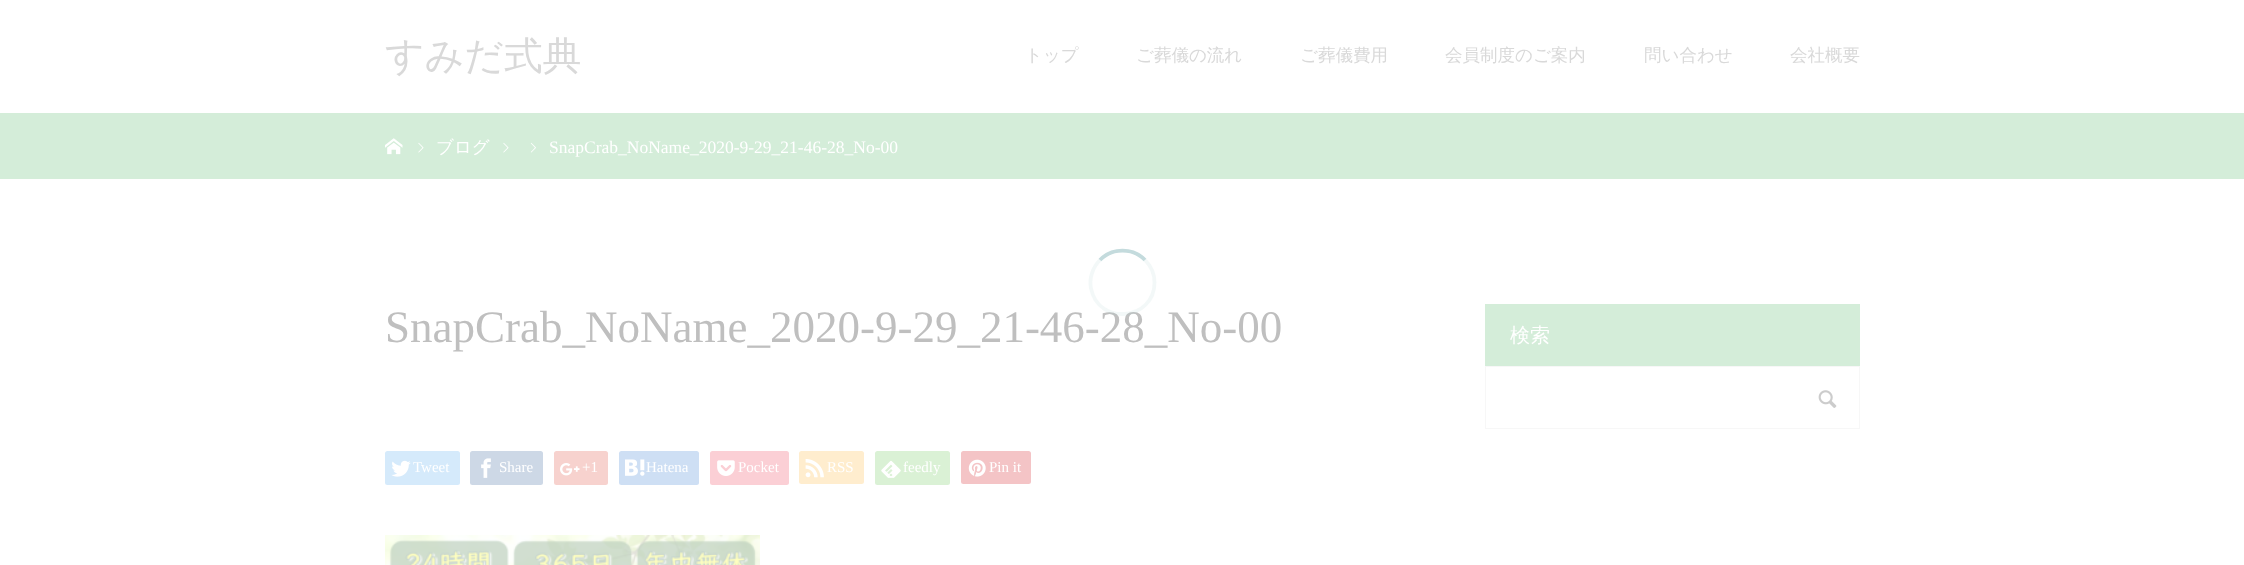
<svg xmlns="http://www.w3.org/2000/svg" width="2244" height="565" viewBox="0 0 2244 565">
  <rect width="100%" height="100%" fill="#ffffff"/>
  <text x="385" y="69" font-family="WenQuanYi Zen Hei" font-size="38.75" font-weight="500" fill="#d9d9d9">すみだ式典</text>
  <text x="1025" y="61" font-family="WenQuanYi Zen Hei" font-size="17.5" font-weight="500" fill="#d9d9d9">トップ</text>
  <text x="1136" y="61" font-family="WenQuanYi Zen Hei" font-size="17.5" font-weight="500" fill="#d9d9d9">ご葬儀の流れ</text>
  <text x="1300" y="61" font-family="WenQuanYi Zen Hei" font-size="17.5" font-weight="500" fill="#d9d9d9">ご葬儀費用</text>
  <text x="1445" y="61" font-family="WenQuanYi Zen Hei" font-size="17.5" font-weight="500" fill="#d9d9d9">会員制度のご案内</text>
  <text x="1644" y="61" font-family="WenQuanYi Zen Hei" font-size="17.5" font-weight="500" fill="#d9d9d9">問い合わせ</text>
  <text x="1790" y="61" font-family="WenQuanYi Zen Hei" font-size="17.5" font-weight="500" fill="#d9d9d9">会社概要</text>
  <rect x="0" y="113" width="2244" height="66" fill="#d4edd9"/>
  <image x="385" y="138" width="18" height="17" href="img1.png"/>
  <image x="418" y="142" width="6" height="11" href="img2.png"/>
  <text x="436" y="153" font-family="WenQuanYi Zen Hei" font-size="17.5" font-weight="500" fill="#ffffff">ブログ</text>
  <image x="503" y="142" width="6" height="11" href="img2.png"/>
  <image x="530" y="142" width="6" height="11" href="img3.png"/>
  <text x="549" y="153" font-family="Liberation Serif" font-size="17.5" fill="#ffffff">SnapCrab_NoName_2020-9-29_21-46-28_No-00</text>
  <text x="385" y="342" font-family="Liberation Serif" font-size="45" fill="#bfbfbf">SnapCrab_NoName_2020-9-29_21-46-28_No-00</text>
  <rect x="385" y="451" width="75" height="34" rx="2.5" fill="#d5eafb"/>
  <image x="391" y="460" width="20" height="17" href="img4.png"/>
  <text x="413" y="472" font-family="Liberation Serif" font-size="15" fill="#ffffff">Tweet</text>
  <rect x="470" y="451" width="73" height="34" rx="2.5" fill="#cdd8e6"/>
  <image x="481" y="458" width="10" height="20" href="img5.png"/>
  <text x="499" y="472" font-family="Liberation Serif" font-size="15" fill="#ffffff">Share</text>
  <rect x="554" y="451" width="54" height="34" rx="2.5" fill="#f7d2ce"/>
  <image x="560" y="463" width="20" height="13" href="img6.png"/>
  <text x="582" y="472" font-family="Liberation Serif" font-size="15" fill="#ffffff">+1</text>
  <rect x="619" y="451" width="80" height="34" rx="2.5" fill="#cedff4"/>
  <image x="625" y="459" width="20" height="17" href="img7.png"/>
  <text x="646" y="472" font-family="Liberation Serif" font-size="15" fill="#ffffff">Hatena</text>
  <rect x="710" y="451" width="79" height="34" rx="2.5" fill="#fbcfd5"/>
  <image x="717" y="460" width="18" height="16" href="img8.png"/>
  <text x="738" y="472" font-family="Liberation Serif" font-size="15" fill="#ffffff">Pocket</text>
  <rect x="799" y="451" width="65" height="33" rx="2.5" fill="#ffedce"/>
  <image x="805" y="459" width="19" height="19" href="img9.png"/>
  <text x="827" y="472" font-family="Liberation Serif" font-size="15" fill="#ffffff">RSS</text>
  <rect x="875" y="451" width="75" height="34" rx="2.5" fill="#daf1d5"/>
  <image x="881" y="460" width="20" height="18" href="img10.png"/>
  <text x="903" y="472" font-family="Liberation Serif" font-size="15" fill="#ffffff">feedly</text>
  <rect x="961" y="451" width="70" height="33" rx="2.5" fill="#f4c4c6"/>
  <image x="968" y="459" width="18" height="18" href="img11.png"/>
  <text x="989" y="472" font-family="Liberation Serif" font-size="15" fill="#ffffff">Pin it</text>
  <image x="385" y="535" width="375" height="30" href="img12.png"/>
  <rect x="1485" y="304" width="375" height="62" fill="#d4edd9"/>
  <text x="1510" y="342" font-family="WenQuanYi Zen Hei" font-size="20" font-weight="500" fill="#ffffff">検索</text>
  <rect x="1485.5" y="366.5" width="374" height="62" fill="none" stroke="#f7f7f7"/>
  <image x="1818" y="390" width="19" height="18" href="img13.png"/>
  <path d="M1100 260C1112 247.5 1133 247.5 1145 260" fill="none" stroke="#c4dbdd" stroke-width="3.8"/>
  <path d="M1145 260C1151 266 1154.5 274 1154.5 282.5C1154.5 320.5 1098.5 326 1091 288.5C1089 278.5 1092.5 267.5 1100 260" fill="none" stroke="#b0cfd2" stroke-opacity="0.15" stroke-width="3.8"/>
</svg>
